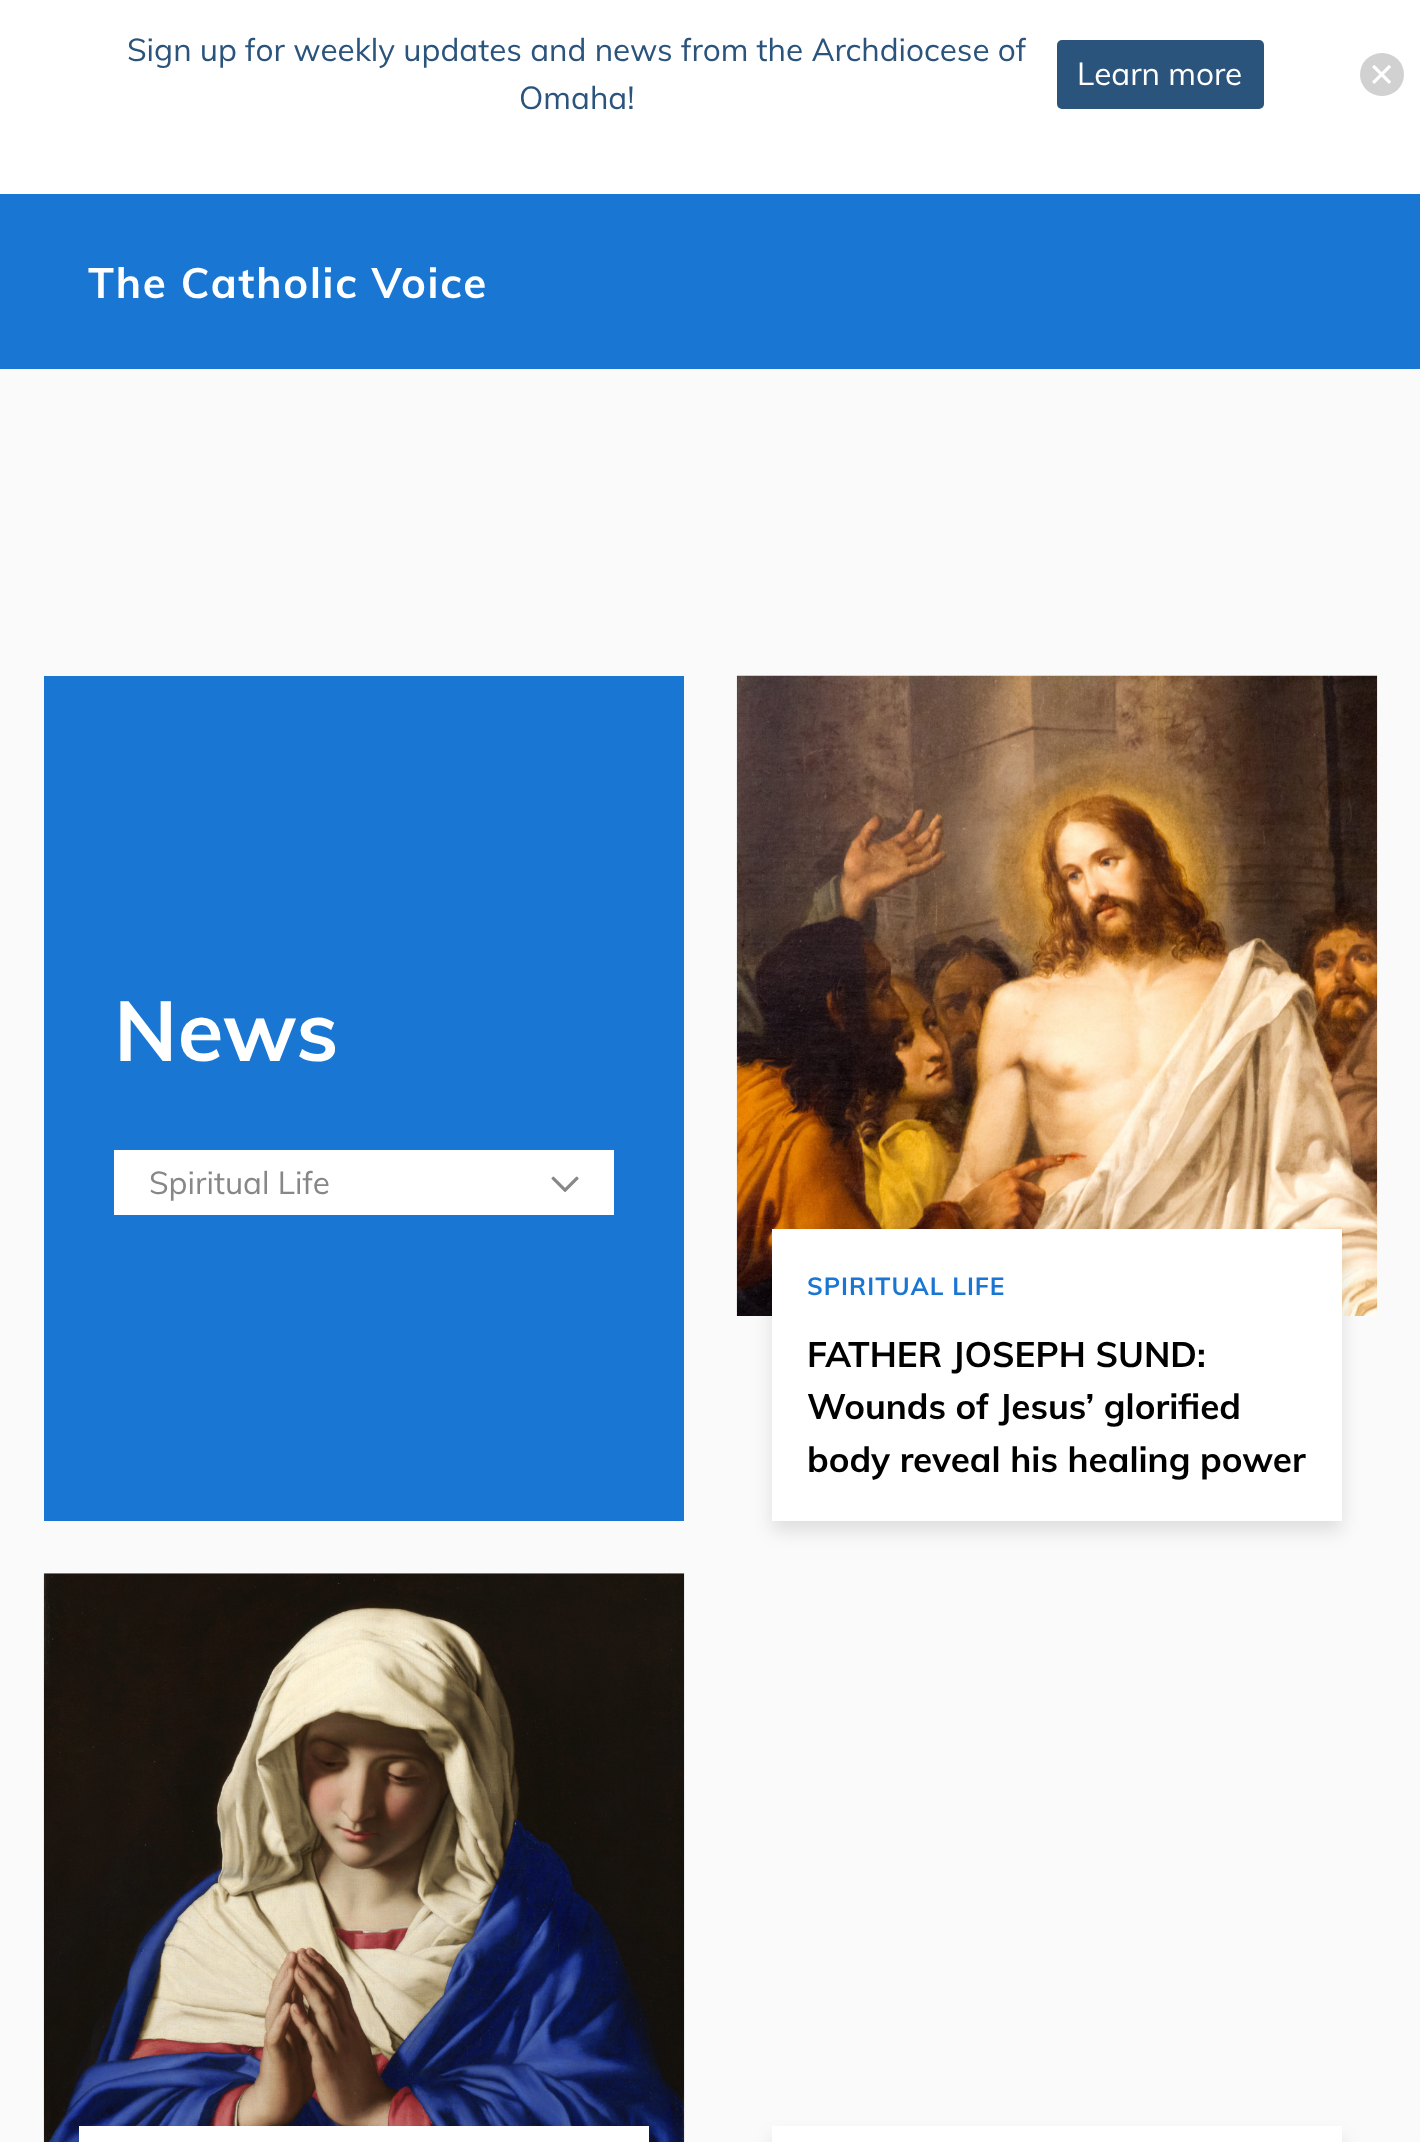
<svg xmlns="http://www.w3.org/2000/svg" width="1420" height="2142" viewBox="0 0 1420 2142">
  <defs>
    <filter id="blur1" x="-50%" y="-200%" width="200%" height="500%"><feGaussianBlur stdDeviation="9"/></filter>
  </defs>
  <rect width="100%" height="100%" fill="#ffffff"/>
  <text x="127" y="61" font-family="Muli" font-size="31.5" fill="#2b547d">Sign up for weekly updates and news from the Archdiocese of</text>
  <text x="519" y="109" font-family="Muli" font-size="31.5" fill="#2b547d">Omaha!</text>
  <rect x="1057" y="40" width="207" height="69" rx="5" fill="#2b547d"/>
  <text x="1077" y="85" font-family="Muli" font-size="31.5" fill="#ffffff">Learn more</text>
  <rect x="1360" y="53" width="44" height="43" rx="21.5" fill="#d1d1d1"/>
  <image x="1372" y="65" width="19" height="19" href="img1.png"/>
  <rect x="0" y="194" width="1420" height="175" fill="#1976d2"/>
  <text x="88" y="298" font-family="Muli" font-size="42" font-weight="bold" letter-spacing="1.75" fill="#ffffff">The Catholic Voice</text>
  <rect x="0" y="369" width="1420" height="1773" fill="#fafafa"/>
  <rect x="44" y="676" width="640" height="845" fill="#1976d2"/>
  <text x="114" y="1061" font-family="Muli" font-size="84" font-weight="bold" fill="#ffffff">News</text>
  <rect x="114" y="1150" width="500" height="65" fill="#ffffff"/>
  <text x="149" y="1194" font-family="Muli" font-size="31.5" fill="#878787">Spiritual Life</text>
  <image x="551" y="1176" width="28" height="16" href="img2.png"/>
  <image x="736" y="675" width="642" height="641" href="img3.png"/>
  <rect x="772" y="1239" width="570" height="292" fill="#000000" fill-opacity="0.11" filter="url(#blur1)"/>
  <rect x="772" y="1229" width="570" height="292" fill="#ffffff"/>
  <text x="807" y="1295" font-family="Muli" font-size="24.5" font-weight="bold" letter-spacing="1" fill="#1976d2">SPIRITUAL LIFE</text>
  <text x="807" y="1367" font-family="Muli" font-size="35" font-weight="bold" fill="#000000">FATHER JOSEPH SUND:</text>
  <text x="807" y="1419" font-family="Muli" font-size="35" font-weight="bold" fill="#000000">Wounds of Jesus’ glorified</text>
  <text x="807" y="1472" font-family="Muli" font-size="35" font-weight="bold" fill="#000000">body reveal his healing power</text>
  <image x="43" y="1573" width="642" height="569" href="img4.png"/>
  <rect x="79" y="2137" width="570" height="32" fill="#000000" fill-opacity="0.11" filter="url(#blur1)"/>
  <rect x="79" y="2126" width="570" height="16" fill="#ffffff"/>
  <rect x="772" y="2137" width="570" height="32" fill="#000000" fill-opacity="0.11" filter="url(#blur1)"/>
  <rect x="772" y="2126" width="570" height="16" fill="#ffffff"/>
</svg>
